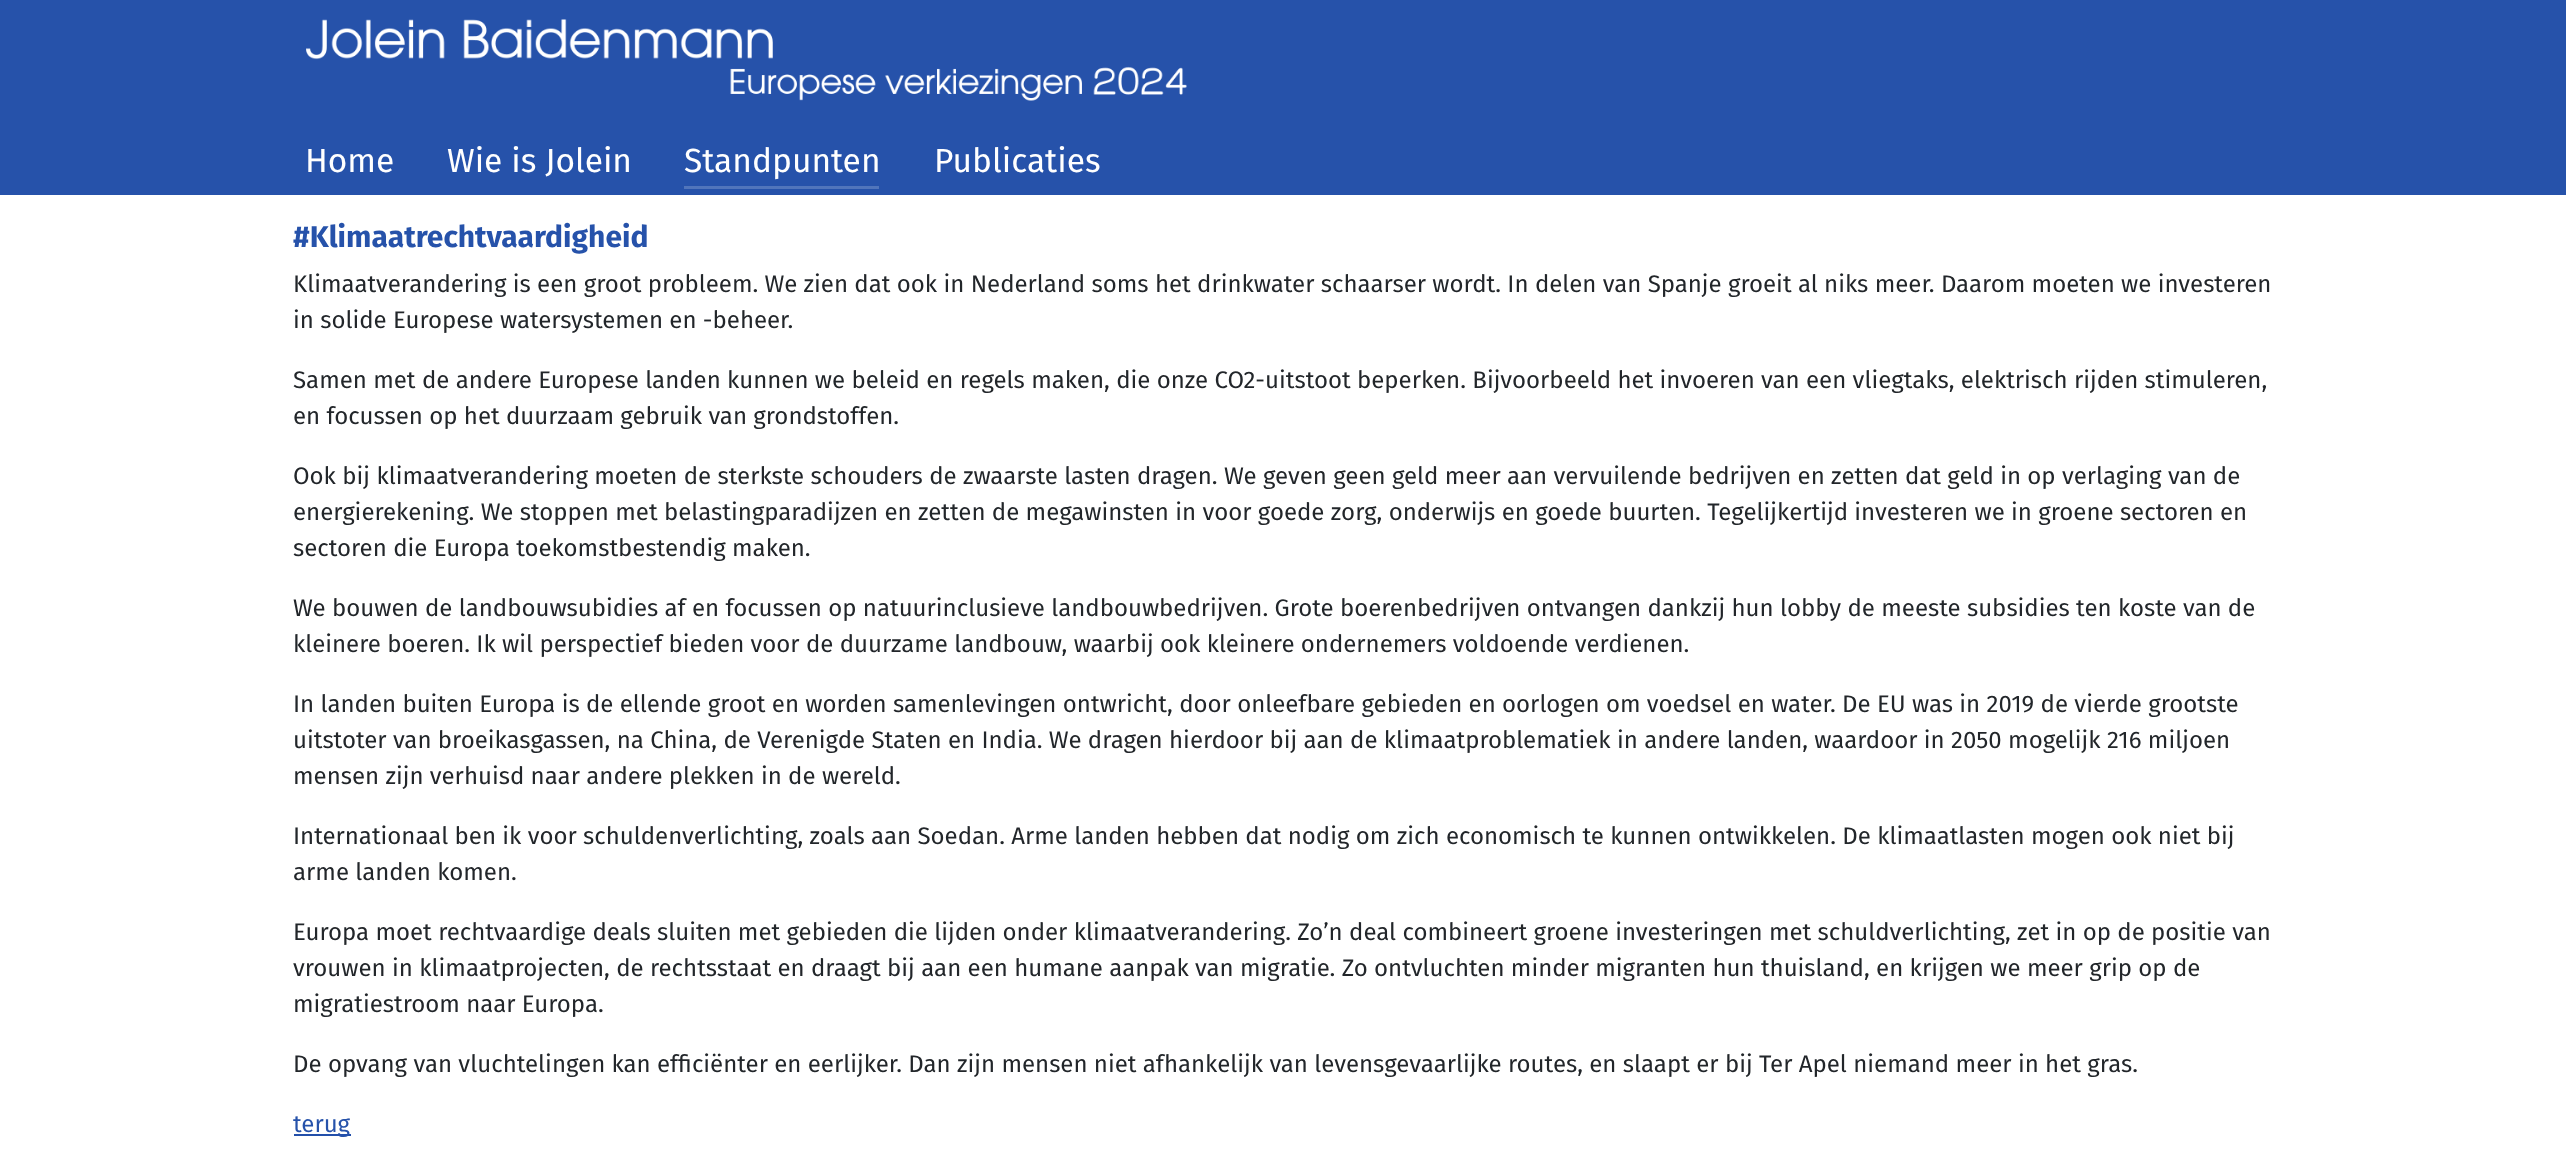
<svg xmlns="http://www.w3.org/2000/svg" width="2566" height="1164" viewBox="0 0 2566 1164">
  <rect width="100%" height="100%" fill="#ffffff"/>
  <rect x="0" y="0" width="2566" height="195" fill="#2652aa"/>
  <image x="306" y="19" width="881" height="82" href="img1.png"/>
  <text x="305" y="172" font-family="Fira Sans" font-size="33.5" fill="#ffffff">Home</text>
  <text x="447" y="172" font-family="Fira Sans" font-size="33.5" fill="#ffffff">Wie is Jolein</text>
  <text x="684" y="172" font-family="Fira Sans" font-size="33.5" fill="#ffffff">Standpunten</text>
  <rect x="684" y="186" width="195" height="3" fill="#5175bb"/>
  <text x="934" y="172" font-family="Fira Sans" font-size="33.5" fill="#ffffff">Publicaties</text>
  <text x="293" y="247" font-family="Fira Sans" font-size="30" font-weight="bold" fill="#2652aa">#Klimaatrechtvaardigheid</text>
  <text x="293" y="292" font-family="Fira Sans" font-size="24" fill="#22262a">Klimaatverandering is een groot probleem. We zien dat ook in Nederland soms het drinkwater schaarser wordt. In delen van Spanje groeit al niks meer. Daarom moeten we investeren</text>
  <text x="293" y="328" font-family="Fira Sans" font-size="24" fill="#22262a">in solide Europese watersystemen en -beheer.</text>
  <text x="293" y="388" font-family="Fira Sans" font-size="24" fill="#22262a">Samen met de andere Europese landen kunnen we beleid en regels maken, die onze CO2-uitstoot beperken. Bijvoorbeeld het invoeren van een vliegtaks, elektrisch rijden stimuleren,</text>
  <text x="293" y="424" font-family="Fira Sans" font-size="24" fill="#22262a">en focussen op het duurzaam gebruik van grondstoffen.</text>
  <text x="293" y="484" font-family="Fira Sans" font-size="24" fill="#22262a">Ook bij klimaatverandering moeten de sterkste schouders de zwaarste lasten dragen. We geven geen geld meer aan vervuilende bedrijven en zetten dat geld in op verlaging van de</text>
  <text x="293" y="520" font-family="Fira Sans" font-size="24" fill="#22262a">energierekening. We stoppen met belastingparadijzen en zetten de megawinsten in voor goede zorg, onderwijs en goede buurten. Tegelijkertijd investeren we in groene sectoren en</text>
  <text x="293" y="556" font-family="Fira Sans" font-size="24" fill="#22262a">sectoren die Europa toekomstbestendig maken.</text>
  <text x="293" y="616" font-family="Fira Sans" font-size="24" fill="#22262a">We bouwen de landbouwsubidies af en focussen op natuurinclusieve landbouwbedrijven. Grote boerenbedrijven ontvangen dankzij hun lobby de meeste subsidies ten koste van de</text>
  <text x="293" y="652" font-family="Fira Sans" font-size="24" fill="#22262a">kleinere boeren. Ik wil perspectief bieden voor de duurzame landbouw, waarbij ook kleinere ondernemers voldoende verdienen.</text>
  <text x="293" y="712" font-family="Fira Sans" font-size="24" fill="#22262a">In landen buiten Europa is de ellende groot en worden samenlevingen ontwricht, door onleefbare gebieden en oorlogen om voedsel en water. De EU was in 2019 de vierde grootste</text>
  <text x="293" y="748" font-family="Fira Sans" font-size="24" fill="#22262a">uitstoter van broeikasgassen, na China, de Verenigde Staten en India. We dragen hierdoor bij aan de klimaatproblematiek in andere landen, waardoor in 2050 mogelijk 216 miljoen</text>
  <text x="293" y="784" font-family="Fira Sans" font-size="24" fill="#22262a">mensen zijn verhuisd naar andere plekken in de wereld.</text>
  <text x="293" y="844" font-family="Fira Sans" font-size="24" fill="#22262a">Internationaal ben ik voor schuldenverlichting, zoals aan Soedan. Arme landen hebben dat nodig om zich economisch te kunnen ontwikkelen. De klimaatlasten mogen ook niet bij</text>
  <text x="293" y="880" font-family="Fira Sans" font-size="24" fill="#22262a">arme landen komen.</text>
  <text x="293" y="940" font-family="Fira Sans" font-size="24" fill="#22262a">Europa moet rechtvaardige deals sluiten met gebieden die lijden onder klimaatverandering. Zo’n deal combineert groene investeringen met schuldverlichting, zet in op de positie van</text>
  <text x="293" y="976" font-family="Fira Sans" font-size="24" fill="#22262a">vrouwen in klimaatprojecten, de rechtsstaat en draagt bij aan een humane aanpak van migratie. Zo ontvluchten minder migranten hun thuisland, en krijgen we meer grip op de</text>
  <text x="293" y="1012" font-family="Fira Sans" font-size="24" fill="#22262a">migratiestroom naar Europa.</text>
  <text x="293" y="1072" font-family="Fira Sans" font-size="24" fill="#22262a">De opvang van vluchtelingen kan efficiënter en eerlijker. Dan zijn mensen niet afhankelijk van levensgevaarlijke routes, en slaapt er bij Ter Apel niemand meer in het gras.</text>
  <rect x="294" y="1134" width="57" height="2" fill="#224faa"/>
  <text x="293" y="1132" font-family="Fira Sans" font-size="24" fill="#2652aa">terug</text>
</svg>
